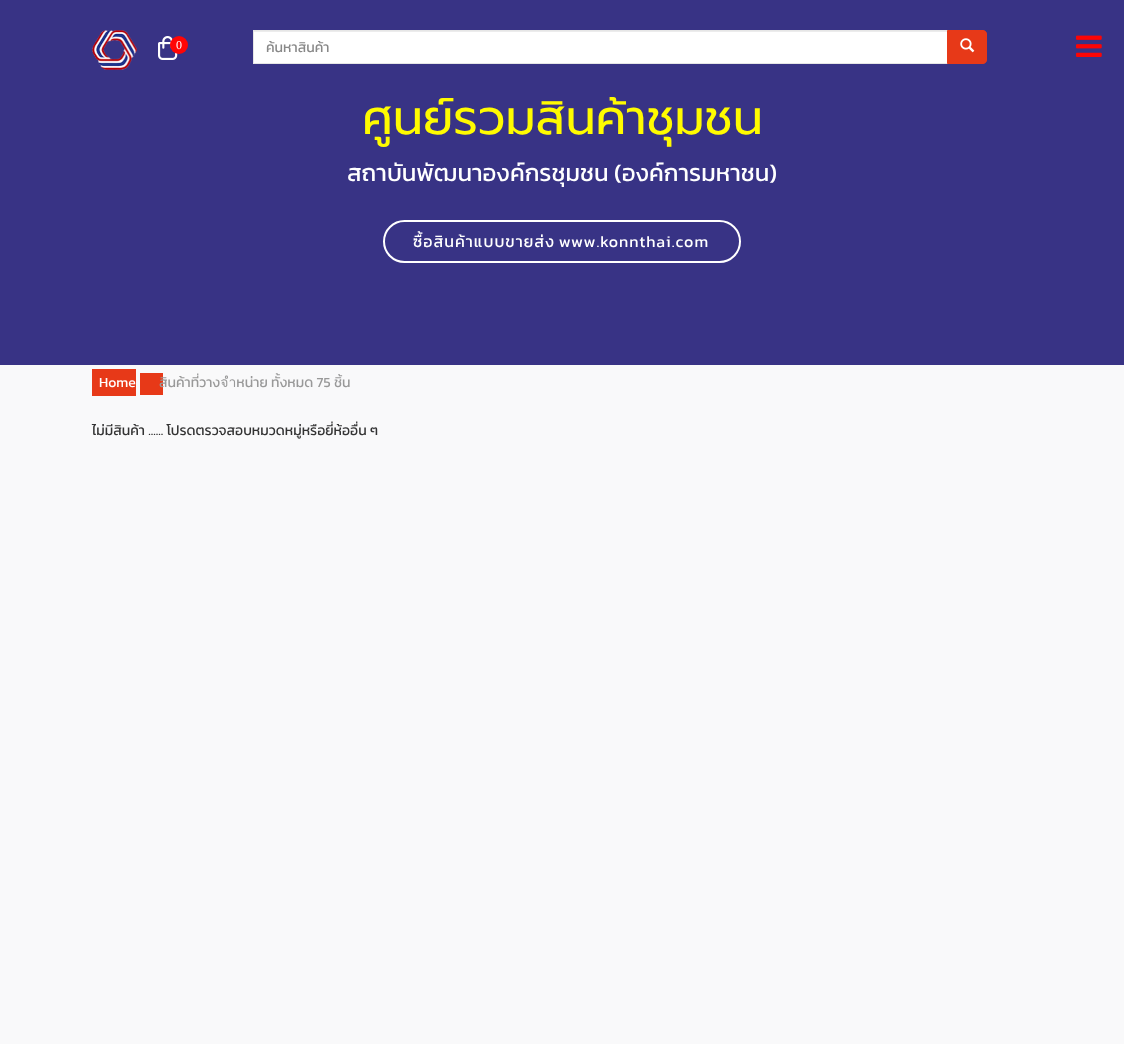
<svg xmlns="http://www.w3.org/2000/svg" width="1124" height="1044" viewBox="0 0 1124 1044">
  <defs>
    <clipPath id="clip1"><rect x="266" y="37" width="669" height="21"/></clipPath>
  </defs>
  <rect width="100%" height="100%" fill="#f9f9fa"/>
  <rect x="0" y="0" width="1124" height="365" fill="#383385"/>
  <image x="92" y="30" width="45" height="40" href="img1.png"/>
  <image x="158" y="36" width="20" height="24" href="img2.png"/>
  <circle cx="179" cy="45" r="9" fill="#ff0505"/>
  <text x="176" y="49" font-family="Liberation Serif" font-size="12" fill="#ffffff">0</text>
  <rect x="254" y="32" width="693" height="31" fill="#ffffff"/>
  <rect x="254" y="31" width="693" height="1" fill="#ececec"/>
  <rect x="253.5" y="30.5" width="694" height="33" fill="none" stroke="#e6e6e6"/>
  <g clip-path="url(#clip1)">
    <text x="266" y="52" font-family="Kanit" font-size="14" fill="#888888">ค้นหาสินค้า</text>
  </g>
  <path d="M947.5 30.5H983C985 30.5 986.5 32 986.5 34V60C986.5 62 985 63.5 983 63.5H947.5Z" fill="#e73918" stroke="#e73918"/>
  <image x="960" y="38" width="15" height="15" href="img3.png"/>
  <image x="1076" y="35" width="26" height="22" href="img4.png"/>
  <text x="362" y="134" font-family="Prompt" font-size="48" fill="#fffb00">ศูนย์รวมสินค้าชุมชน</text>
  <text x="347" y="181" font-family="Kanit" font-size="24" fill="#ffffff">สถาบันพัฒนาองค์กรชุมชน (องค์การมหาชน)</text>
  <rect x="384" y="221" width="356" height="41" rx="20.5" fill="none" stroke="#ffffff" stroke-width="2"/>
  <text x="413" y="247" word-spacing="-1" font-family="Kanit" font-size="16" letter-spacing="1" fill="#ffffff">ซื้อสินค้าแบบขายส่ง www.konnthai.com</text>
  <rect x="92" y="369" width="44" height="27" fill="#e73918"/>
  <text x="99" y="387" font-family="Kanit" font-size="14" fill="#ffffff">Home</text>
  <rect x="140" y="373" width="23" height="22" fill="#e73918"/>
  <text x="159" y="387" font-family="Kanit" font-size="14" fill="#999999">สินค้าที่วางจำหน่าย ทั้งหมด 75 ชิ้น</text>
  <text x="92" y="435" font-family="Kanit" font-size="14" fill="#333333">ไม่มีสินค้า ...... โปรดตรวจสอบหมวดหมู่หรือยี่ห้ออื่น ๆ</text>
</svg>
